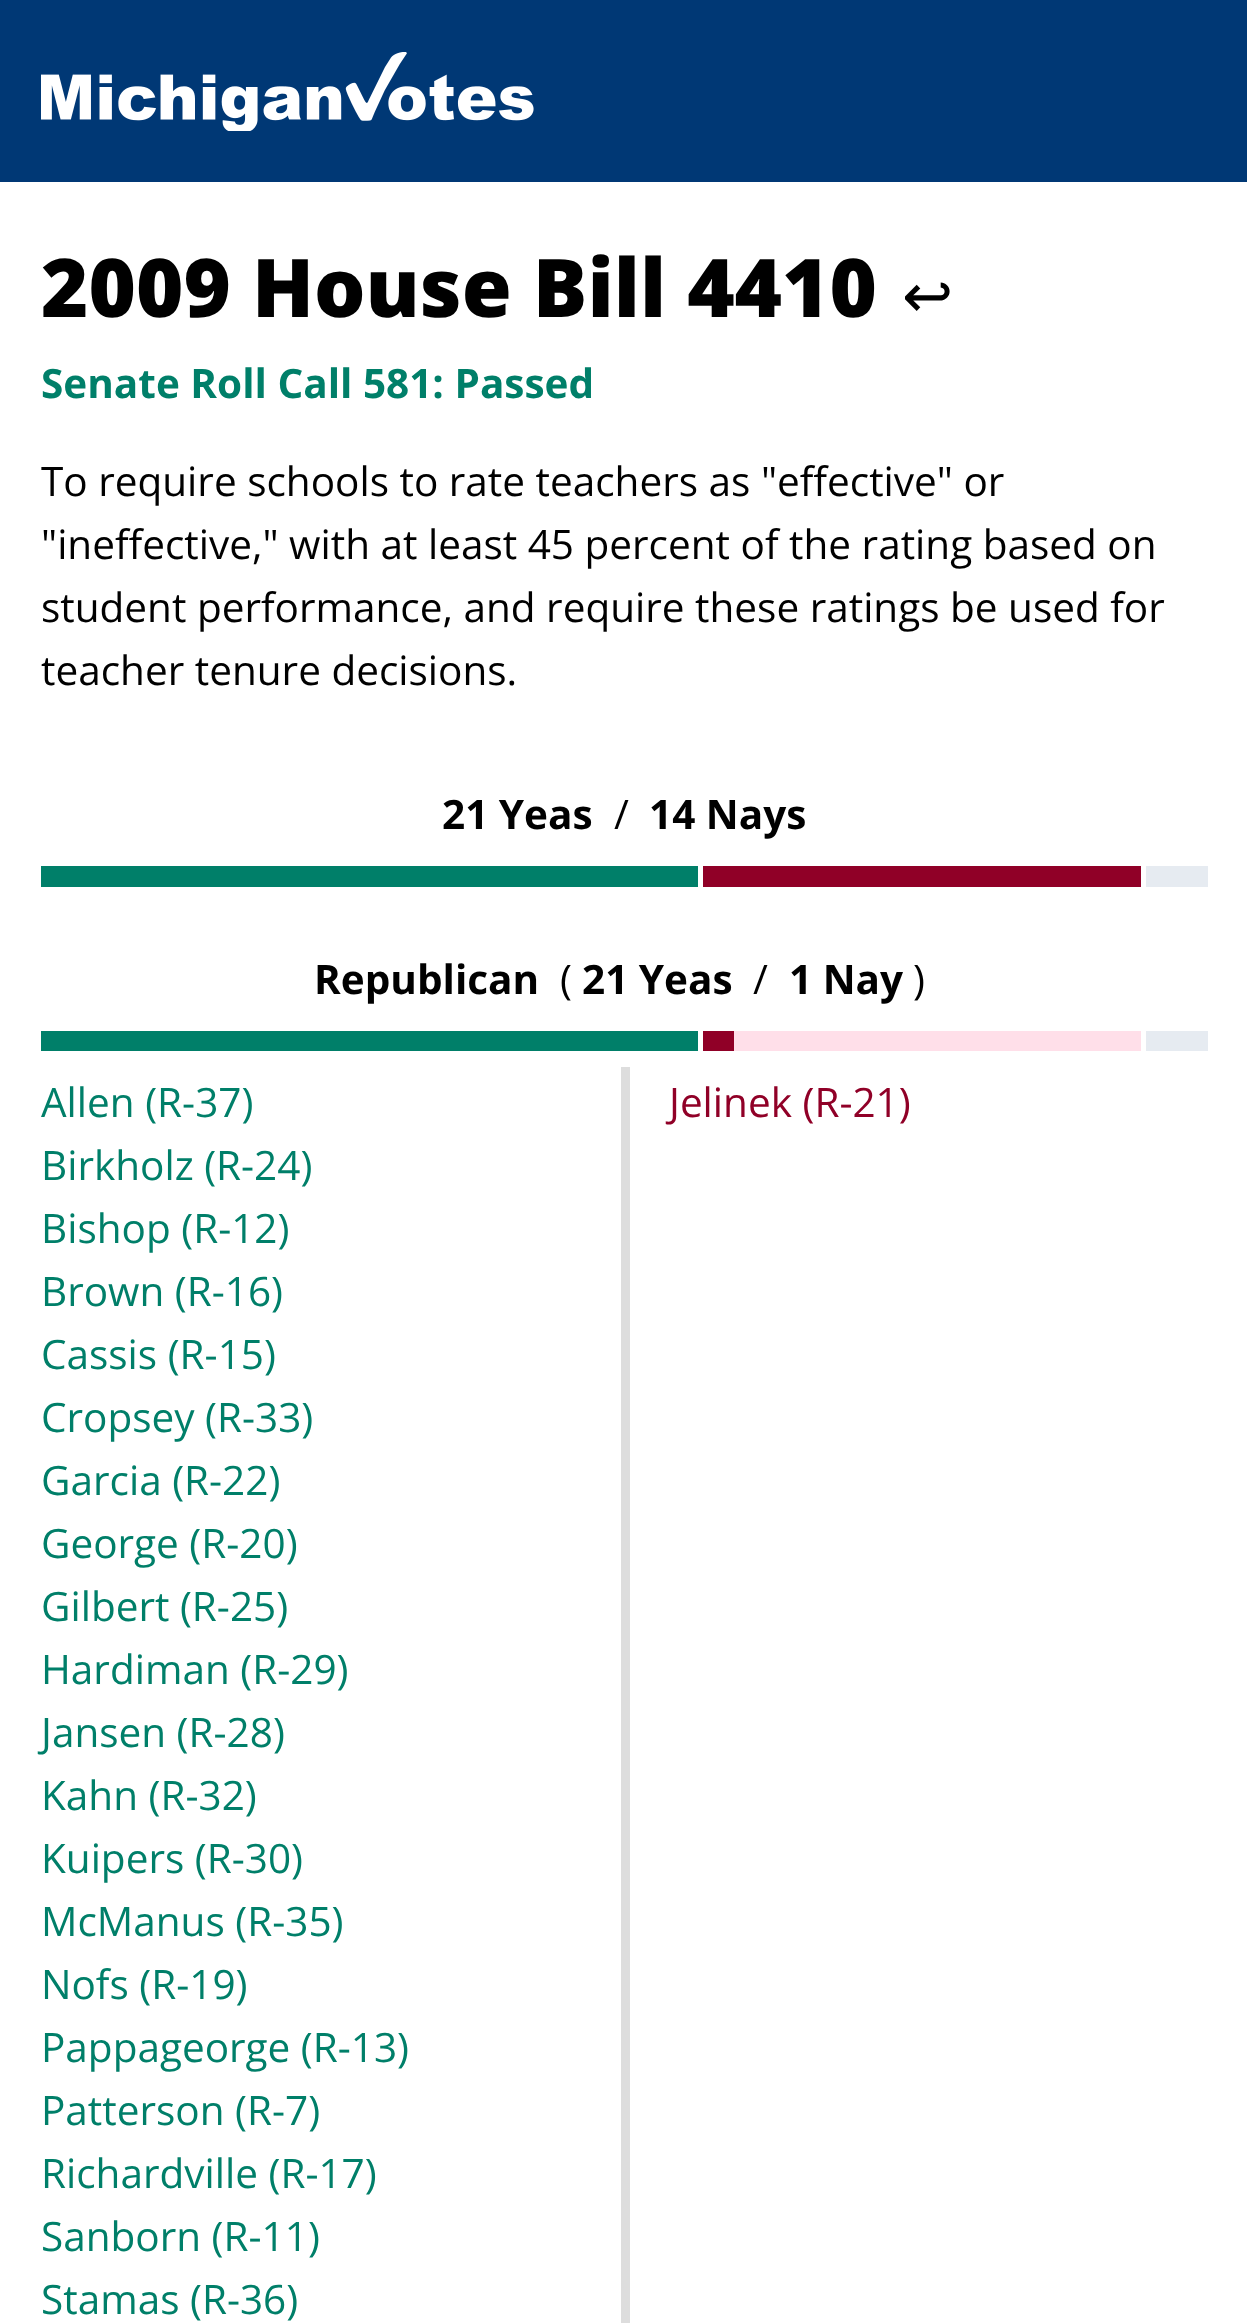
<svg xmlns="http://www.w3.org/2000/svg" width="1247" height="2323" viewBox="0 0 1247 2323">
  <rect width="100%" height="100%" fill="#ffffff"/>
  <rect x="0" y="0" width="1247" height="182" fill="#003875"/>
  <image x="41" y="52" width="493" height="79" href="img1.png"/>
  <text x="41" y="317" font-family="Open Sans" font-size="81" font-weight="800" fill="#000000">2009 House Bill 4410</text>
  <text x="902" y="317" font-family="DejaVu Sans" font-size="61" fill="#000000">↩</text>
  <text x="41" y="398" font-family="Open Sans" font-size="40.5" font-weight="bold" fill="#007f69">Senate Roll Call 581: Passed</text>
  <text x="41" y="496" font-family="Open Sans" font-size="40.5" fill="#000000">To require schools to rate teachers as "effective" or</text>
  <text x="41" y="559" font-family="Open Sans" font-size="40.5" fill="#000000">"ineffective," with at least 45 percent of the rating based on</text>
  <text x="41" y="622" font-family="Open Sans" font-size="40.5" fill="#000000">student performance, and require these ratings be used for</text>
  <text x="41" y="685" font-family="Open Sans" font-size="40.5" fill="#000000">teacher tenure decisions.</text>
  <text x="442" y="829" font-family="Open Sans" font-size="40.5" font-weight="bold" fill="#000000">21 Yeas</text>
  <text x="614" y="829" font-family="Open Sans" font-size="40.5" fill="#000000">/</text>
  <text x="649" y="829" font-family="Open Sans" font-size="40.5" font-weight="bold" fill="#000000">14 Nays</text>
  <rect x="41" y="866" width="657" height="21" fill="#007f69"/>
  <rect x="703" y="866" width="438" height="21" fill="#900027"/>
  <rect x="1146" y="866" width="62" height="21" fill="#e6ebf1"/>
  <text x="314" y="994" font-family="Open Sans" font-size="40.5" font-weight="bold" fill="#000000">Republican</text>
  <text x="560" y="994" font-family="Open Sans" font-size="40.5" fill="#000000">(</text>
  <text x="582" y="994" font-family="Open Sans" font-size="40.5" font-weight="bold" fill="#000000">21 Yeas</text>
  <text x="753" y="994" font-family="Open Sans" font-size="40.5" fill="#000000">/</text>
  <text x="789" y="994" font-family="Open Sans" font-size="40.5" font-weight="bold" fill="#000000">1 Nay</text>
  <text x="913" y="994" font-family="Open Sans" font-size="40.5" fill="#000000">)</text>
  <rect x="41" y="1031" width="657" height="20" fill="#007f69"/>
  <rect x="703" y="1031" width="31" height="20" fill="#900027"/>
  <rect x="734" y="1031" width="407" height="20" fill="#ffdfe9"/>
  <rect x="1146" y="1031" width="62" height="20" fill="#e6ebf1"/>
  <text x="41" y="1117" font-family="Open Sans" font-size="40.5" fill="#007f69">Allen (R-37)</text>
  <text x="41" y="1180" font-family="Open Sans" font-size="40.5" fill="#007f69">Birkholz (R-24)</text>
  <text x="41" y="1243" font-family="Open Sans" font-size="40.5" fill="#007f69">Bishop (R-12)</text>
  <text x="41" y="1306" font-family="Open Sans" font-size="40.5" fill="#007f69">Brown (R-16)</text>
  <text x="41" y="1369" font-family="Open Sans" font-size="40.5" fill="#007f69">Cassis (R-15)</text>
  <text x="41" y="1432" font-family="Open Sans" font-size="40.5" fill="#007f69">Cropsey (R-33)</text>
  <text x="41" y="1495" font-family="Open Sans" font-size="40.5" fill="#007f69">Garcia (R-22)</text>
  <text x="41" y="1558" font-family="Open Sans" font-size="40.5" fill="#007f69">George (R-20)</text>
  <text x="41" y="1621" font-family="Open Sans" font-size="40.5" fill="#007f69">Gilbert (R-25)</text>
  <text x="41" y="1684" font-family="Open Sans" font-size="40.5" fill="#007f69">Hardiman (R-29)</text>
  <text x="41" y="1747" font-family="Open Sans" font-size="40.5" fill="#007f69">Jansen (R-28)</text>
  <text x="41" y="1810" font-family="Open Sans" font-size="40.5" fill="#007f69">Kahn (R-32)</text>
  <text x="41" y="1873" font-family="Open Sans" font-size="40.5" fill="#007f69">Kuipers (R-30)</text>
  <text x="41" y="1936" font-family="Open Sans" font-size="40.5" fill="#007f69">McManus (R-35)</text>
  <text x="41" y="1999" font-family="Open Sans" font-size="40.5" fill="#007f69">Nofs (R-19)</text>
  <text x="41" y="2062" font-family="Open Sans" font-size="40.5" fill="#007f69">Pappageorge (R-13)</text>
  <text x="41" y="2125" font-family="Open Sans" font-size="40.5" fill="#007f69">Patterson (R-7)</text>
  <text x="41" y="2188" font-family="Open Sans" font-size="40.5" fill="#007f69">Richardville (R-17)</text>
  <text x="41" y="2251" font-family="Open Sans" font-size="40.5" fill="#007f69">Sanborn (R-11)</text>
  <text x="41" y="2314" font-family="Open Sans" font-size="40.5" fill="#007f69">Stamas (R-36)</text>
  <rect x="621" y="1067" width="9" height="1256" fill="#dddddd"/>
  <text x="669" y="1117" font-family="Open Sans" font-size="40.5" fill="#900027">Jelinek (R-21)</text>
</svg>
